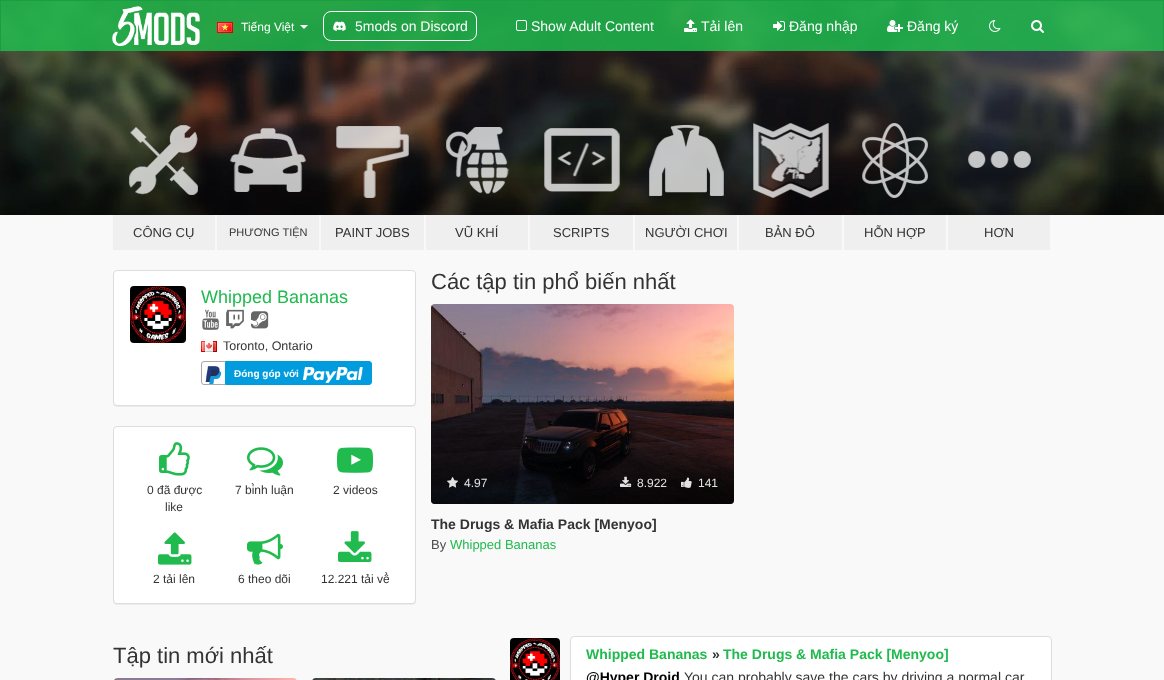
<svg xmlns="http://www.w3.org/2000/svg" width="1164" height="680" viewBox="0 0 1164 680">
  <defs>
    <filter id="blur1" x="-50%" y="-200%" width="200%" height="500%"><feGaussianBlur stdDeviation="0.5"/></filter>
    <linearGradient id="g1" gradientUnits="userSpaceOnUse" x1="583" y1="304" x2="583" y2="504"><stop offset="0.5" stop-color="#000000" stop-opacity="0"/><stop offset="0.75" stop-color="#000000" stop-opacity="0.25"/><stop offset="1" stop-color="#000000" stop-opacity="0.75"/></linearGradient>
  </defs>
  <rect width="100%" height="100%" fill="#f9f9f9"/>
  <image x="0" y="1" width="1164" height="214" href="img10.png"/>
  <rect x="1" y="1" width="1162" height="50" fill="#20ba4e" fill-opacity="0.85"/>
  <rect x="0" y="0" width="1164" height="1" fill="#1b9e42"/>
  <rect x="1163" y="0" width="1" height="51" fill="#1b9e42"/>
  <rect x="0" y="0" width="1" height="51" fill="#1b9e42"/>
  <image x="112" y="6" width="88" height="40" href="img1.png"/>
  <image x="217" y="22" width="16" height="11" href="img2.png"/>
  <text x="241" y="31" font-family="Liberation Sans" font-size="12" fill="#ffffff">Tiếng Việt</text>
  <path d="M300 25H308L304 29Z" fill="#ffffff"/>
  <rect x="323.5" y="11.5" width="153" height="29" rx="7.5" fill="none" stroke="#ffffff"/>
  <image x="333" y="21" width="13" height="10" href="img3.png"/>
  <text x="355" y="31" font-family="Liberation Sans" font-size="14" fill="#ffffff">5mods on Discord</text>
  <image x="516" y="20" width="11" height="11" href="img4.png"/>
  <text x="531" y="31" font-family="Liberation Sans" font-size="14" fill="#ffffff">Show Adult Content</text>
  <image x="684" y="19" width="13" height="13" href="img5.png"/>
  <text x="701" y="31" font-family="Liberation Sans" font-size="14" fill="#ffffff">Tải lên</text>
  <image x="773" y="21" width="12" height="10" href="img6.png"/>
  <text x="789" y="31" font-family="Liberation Sans" font-size="14" fill="#ffffff">Đăng nhập</text>
  <image x="887" y="20" width="16" height="12" href="img7.png"/>
  <text x="907" y="31" font-family="Liberation Sans" font-size="14" fill="#ffffff">Đăng ký</text>
  <image x="989" y="20" width="12" height="12" href="img8.png"/>
  <image x="1031" y="20" width="13" height="13" href="img9.png"/>
  <image x="129" y="125" width="69" height="70" href="img11.png"/>
  <rect x="113" y="215" width="102" height="35" fill="#efefef"/>
  <text x="133" y="237" font-family="Liberation Sans" font-size="13" fill="#333333">CÔNG CỤ</text>
  <image x="230" y="128" width="76" height="64" href="img12.png"/>
  <rect x="217" y="215" width="102" height="35" fill="#efefef"/>
  <text x="229" y="236" font-family="Liberation Sans" font-size="11" fill="#333333">PHƯƠNG TIỆN</text>
  <image x="336" y="126" width="73" height="72" href="img13.png"/>
  <rect x="321" y="215" width="103" height="35" fill="#efefef"/>
  <text x="335" y="237" font-family="Liberation Sans" font-size="13" fill="#333333">PAINT JOBS</text>
  <image x="446" y="127" width="63" height="67" href="img14.png"/>
  <rect x="426" y="215" width="102" height="35" fill="#efefef"/>
  <text x="455" y="237" font-family="Liberation Sans" font-size="13" fill="#333333">VŨ KHÍ</text>
  <image x="544" y="128" width="76" height="64" href="img15.png"/>
  <rect x="530" y="215" width="103" height="35" fill="#efefef"/>
  <text x="553" y="237" font-family="Liberation Sans" font-size="13" fill="#333333">SCRIPTS</text>
  <image x="649" y="125" width="75" height="71" href="img16.png"/>
  <rect x="635" y="215" width="102" height="35" fill="#efefef"/>
  <text x="645" y="237" font-family="Liberation Sans" font-size="13" fill="#333333">NGƯỜI CHƠI</text>
  <image x="753" y="123" width="76" height="75" href="img17.png"/>
  <rect x="739" y="215" width="103" height="35" fill="#efefef"/>
  <text x="765" y="237" font-family="Liberation Sans" font-size="13" fill="#333333">BẢN ĐỒ</text>
  <image x="862" y="123" width="66" height="75" href="img18.png"/>
  <rect x="844" y="215" width="102" height="35" fill="#efefef"/>
  <text x="864" y="237" font-family="Liberation Sans" font-size="13" fill="#333333">HỖN HỢP</text>
  <image x="968" y="151" width="63" height="17" href="img19.png"/>
  <rect x="948" y="215" width="102" height="35" fill="#efefef"/>
  <text x="984" y="237" font-family="Liberation Sans" font-size="13" fill="#333333">HƠN</text>
  <rect x="113" y="271" width="303" height="136" rx="4" fill="#000000" fill-opacity="0.05" filter="url(#blur1)"/>
  <rect x="113.5" y="270.5" width="302" height="135" rx="3.5" fill="#ffffff" stroke="#dddddd"/>
  <image x="130" y="286" width="56" height="57" href="img20.png"/>
  <text x="201" y="303" font-family="Liberation Sans" font-size="18" fill="#20ba4e">Whipped Bananas</text>
  <image x="202" y="309" width="17" height="21" href="img21.png"/>
  <image x="226" y="309" width="18" height="20" href="img22.png"/>
  <image x="251" y="311" width="18" height="18" href="img23.png"/>
  <image x="201" y="341" width="16" height="11" href="img24.png"/>
  <text x="223" y="350" font-family="Liberation Sans" font-size="12.5" fill="#333333">Toronto, Ontario</text>
  <path d="M204 361H225V385H204C202.5 385 201 383.5 201 382V364C201 362.5 202.5 361 204 361ZM204 362H225V384H204C203 384 202 383 202 382V364C202 363 203 362 204 362Z" fill="#aaaaaa" fill-rule="evenodd"/>
  <image x="205" y="366" width="17" height="18" href="img25.png"/>
  <path d="M225.5 361.5H369C370.5 361.5 371.5 362.5 371.5 364V382C371.5 383.5 370.5 384.5 369 384.5H225.5Z" fill="#009cde" stroke="#009cde"/>
  <text x="234" y="377" font-family="Liberation Sans" font-size="10" font-weight="bold" fill="#ffffff">Đóng góp với</text>
  <image x="303" y="367" width="60" height="16" href="img26.png"/>
  <rect x="113" y="427" width="303" height="178" rx="4" fill="#000000" fill-opacity="0.05" filter="url(#blur1)"/>
  <rect x="113.5" y="426.5" width="302" height="177" rx="3.5" fill="#ffffff" stroke="#dddddd"/>
  <image x="159" y="442" width="31" height="34" href="img27.png"/>
  <text x="147" y="494" font-family="Liberation Sans" font-size="12" fill="#333333">0 đã được</text>
  <text x="165" y="511" font-family="Liberation Sans" font-size="12" fill="#333333">like</text>
  <image x="247" y="447" width="36" height="29" href="img28.png"/>
  <text x="235" y="494" font-family="Liberation Sans" font-size="12" fill="#333333">7 bình luận</text>
  <image x="337" y="447" width="36" height="26" href="img29.png"/>
  <text x="333" y="494" font-family="Liberation Sans" font-size="12" fill="#333333">2 videos</text>
  <image x="158" y="532" width="34" height="33" href="img30.png"/>
  <text x="153" y="583" font-family="Liberation Sans" font-size="12" fill="#333333">2 tải lên</text>
  <image x="247" y="533" width="36" height="32" href="img31.png"/>
  <text x="238" y="583" font-family="Liberation Sans" font-size="12" fill="#333333">6 theo dõi</text>
  <image x="338" y="531" width="34" height="31" href="img32.png"/>
  <text x="321" y="583" font-family="Liberation Sans" font-size="12" fill="#333333">12.221 tải về</text>
  <text x="431" y="289" font-family="Liberation Sans" font-size="22" fill="#333333">Các tập tin phổ biến nhất</text>
  <image x="431" y="304" width="303" height="200" href="img33.png"/>
  <rect x="431" y="304" width="303" height="200" rx="4" fill="url(#g1)"/>
  <image x="447" y="477" width="11" height="11" href="img34.png"/>
  <text x="464" y="487" font-family="Liberation Sans" font-size="12" fill="#e2e2e2">4.97</text>
  <image x="620" y="476" width="12" height="11" href="img35.png"/>
  <text x="637" y="487" font-family="Liberation Sans" font-size="12" fill="#e2e2e2">8.922</text>
  <image x="681" y="477" width="11" height="11" href="img36.png"/>
  <text x="698" y="487" font-family="Liberation Sans" font-size="12" fill="#e2e2e2">141</text>
  <text x="431" y="529" font-family="Liberation Sans" font-size="14" font-weight="bold" fill="#333333">The Drugs &amp; Mafia Pack [Menyoo]</text>
  <text x="431" y="549" font-family="Liberation Sans" font-size="13" fill="#4b4b4b">By</text>
  <text x="450" y="549" font-family="Liberation Sans" font-size="13" fill="#20ba4e">Whipped Bananas</text>
  <text x="113" y="663" font-family="Liberation Sans" font-size="22" fill="#333333">Tập tin mới nhất</text>
  <image x="114" y="678" width="183" height="2" href="img37.png"/>
  <image x="312" y="678" width="184" height="2" href="img38.png"/>
  <image x="510" y="638" width="50" height="42" href="img39.png"/>
  <rect x="570.5" y="636.5" width="481" height="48" rx="3.5" fill="#ffffff" stroke="#dddddd"/>
  <text x="586" y="659" font-family="Liberation Sans" font-size="14" font-weight="bold" fill="#20ba4e">Whipped Bananas</text>
  <text x="712" y="659" font-family="Liberation Sans" font-size="14" font-weight="bold" fill="#333333">»</text>
  <text x="723" y="659" font-family="Liberation Sans" font-size="14" font-weight="bold" fill="#20ba4e">The Drugs &amp; Mafia Pack [Menyoo]</text>
  <text x="586" y="682" font-family="Liberation Sans" font-size="14" font-weight="bold" fill="#000000">@Hyper Droid</text>
  <text x="684" y="682" font-family="Liberation Sans" font-size="14" fill="#333333">You can probably save the cars by driving a normal car</text>
</svg>
